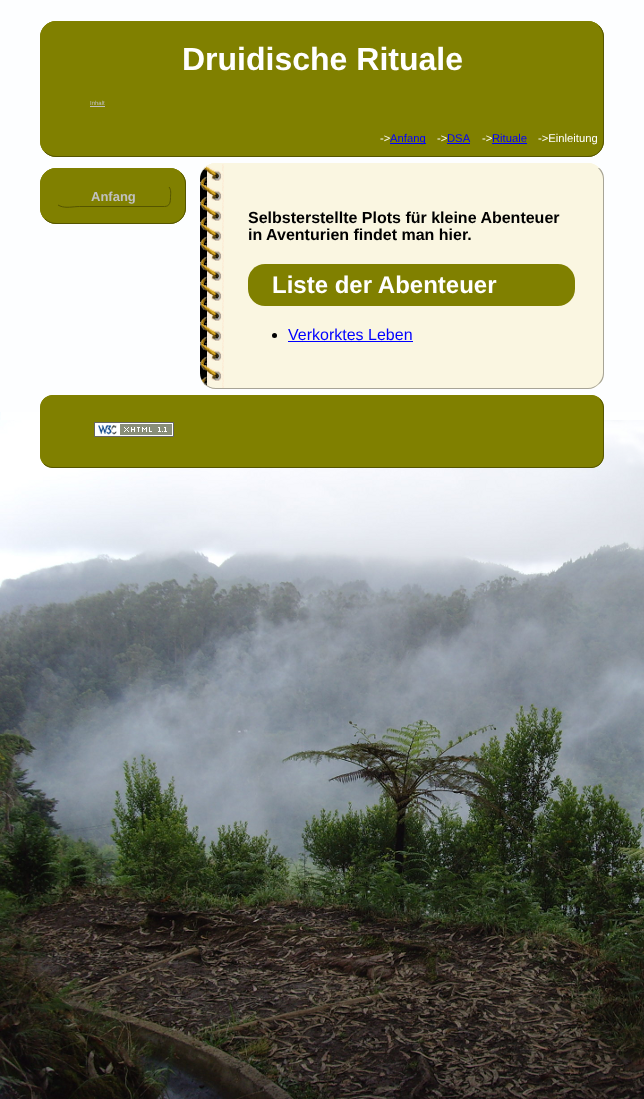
<svg xmlns="http://www.w3.org/2000/svg" width="644" height="1099" viewBox="0 0 644 1099">
  <rect width="100%" height="100%" fill="#fdfeff"/>
  <image x="0" y="412" width="644" height="687" href="img1.png"/>
  <rect x="40" y="21" width="564" height="136" rx="16" fill="#808000"/>
  <path d="M599 26C602 29 603.5 33 603.5 37V141C603.5 145 602 149 599 152C596 155 592 156.5 588 156.5H56C52 156.5 48 155 45 152" fill="none" stroke="#555500"/>
  <path d="M45 152C42 149 40.5 145 40.5 141V37C40.5 33 42 29 45 26C48 23 52 21.5 56 21.5H588C592 21.5 596 23 599 26" fill="none" stroke="#808000"/>
  <text x="182" y="70" font-family="Liberation Sans" font-size="32" font-weight="bold" fill="#ffffff">Druidische Rituale</text>
  <text x="90" y="105" font-family="Liberation Sans" font-size="6" fill="#c0c0c0">Inhalt</text>
  <rect x="90" y="106" width="15" height="1" fill="#c0c0c0"/>
  <text x="380" y="142" font-family="Liberation Sans" font-size="11.25" fill="#ffffff">-&gt;</text>
  <rect x="390" y="143" width="36" height="1" fill="#0000ff"/>
  <text x="390" y="142" font-family="Liberation Sans" font-size="11.25" fill="#0000ff">Anfang</text>
  <text x="437" y="142" font-family="Liberation Sans" font-size="11.25" fill="#ffffff">-&gt;</text>
  <rect x="447" y="143" width="23" height="1" fill="#0000ff"/>
  <text x="447" y="142" font-family="Liberation Sans" font-size="11.25" fill="#0000ff">DSA</text>
  <text x="482" y="142" font-family="Liberation Sans" font-size="11.25" fill="#ffffff">-&gt;</text>
  <rect x="492" y="143" width="35" height="1" fill="#0000ff"/>
  <text x="492" y="142" font-family="Liberation Sans" font-size="11.25" fill="#0000ff">Rituale</text>
  <text x="538" y="142" font-family="Liberation Sans" font-size="11.25" fill="#ffffff">-&gt;Einleitung</text>
  <rect x="40" y="168" width="146" height="56" rx="16" fill="#808000"/>
  <path d="M181 173C184 176 185.5 180 185.5 184V208C185.5 212 184 216 181 219C178 222 174 223.5 170 223.5H56C52 223.5 48 222 45 219" fill="none" stroke="#555500"/>
  <path d="M45 219C42 216 40.5 212 40.5 208V184C40.5 180 42 176 45 173C48 170 52 168.5 56 168.5H170C174 168.5 178 170 181 173" fill="none" stroke="#808000"/>
  <path d="M169 187C171.5 190 170.5 194 170.5 197.5C170.5 201.5 170 206.5 164.5 206.5H79.5C73 206.5 66 208.5 60 206L58 205" fill="none" stroke="#555500"/>
  <text x="91" y="201" font-family="Liberation Sans" font-size="13" font-weight="bold" fill="#c0c0c0">Anfang</text>
  <rect x="200" y="163" width="404" height="226" rx="16" fill="#faf6e1"/>
  <image x="200" y="163" width="24" height="226" href="img2.png"/>
  <path d="M216 163C207 163 200 170 200 179C200 171 207 164 216 164H588C592 164 596 166 598 168H599C596 165 592 163 588 163Z" fill="#faf6e1"/>
  <path d="M598 384C601 381 603 377 603 373V179C603 175 601 171 598 168H599C602 170 604 174 604 179V373C604 378 602 382 599 384Z" fill="#a7a496"/>
  <path d="M216 389H588C592 389 596 387 599 384H598C596 386 592 388 588 388H216C207 388 200 381 200 373C200 382 207 389 216 389Z" fill="#a7a496"/>
  <text x="248" y="223" font-family="Liberation Sans" font-size="16" font-weight="bold" fill="#000000">Selbsterstellte Plots für kleine Abenteuer</text>
  <text x="248" y="240" font-family="Liberation Sans" font-size="16" font-weight="bold" fill="#000000">in Aventurien findet man hier.</text>
  <rect x="248" y="264" width="327" height="42" rx="17" fill="#808000"/>
  <text x="272" y="293" font-family="Liberation Sans" font-size="24" font-weight="bold" fill="#ffffff">Liste der Abenteuer</text>
  <circle cx="274.5" cy="335.5" r="2.5" fill="#000000"/>
  <text x="288" y="340" font-family="Liberation Sans" font-size="16" fill="#0000ff">Verkorktes Leben</text>
  <rect x="288" y="341" width="125" height="1" fill="#0000ff"/>
  <rect x="40" y="395" width="564" height="73" rx="13" fill="#808000"/>
  <path d="M600 399C602 401.5 603.5 404.5 603.5 408V455C603.5 458.5 602 461.5 600 464C597.5 466 594.5 467.5 591 467.5H53C49.5 467.5 46.5 466 44 464" fill="none" stroke="#555500"/>
  <path d="M44 464C42 461.5 40.5 458.5 40.5 455V408C40.5 404.5 42 401.5 44 399C46.5 397 49.5 395.5 53 395.5H591C594.5 395.5 597.5 397 600 399" fill="none" stroke="#808000"/>
  <image x="94" y="422" width="80" height="15" href="img3.png"/>
</svg>
